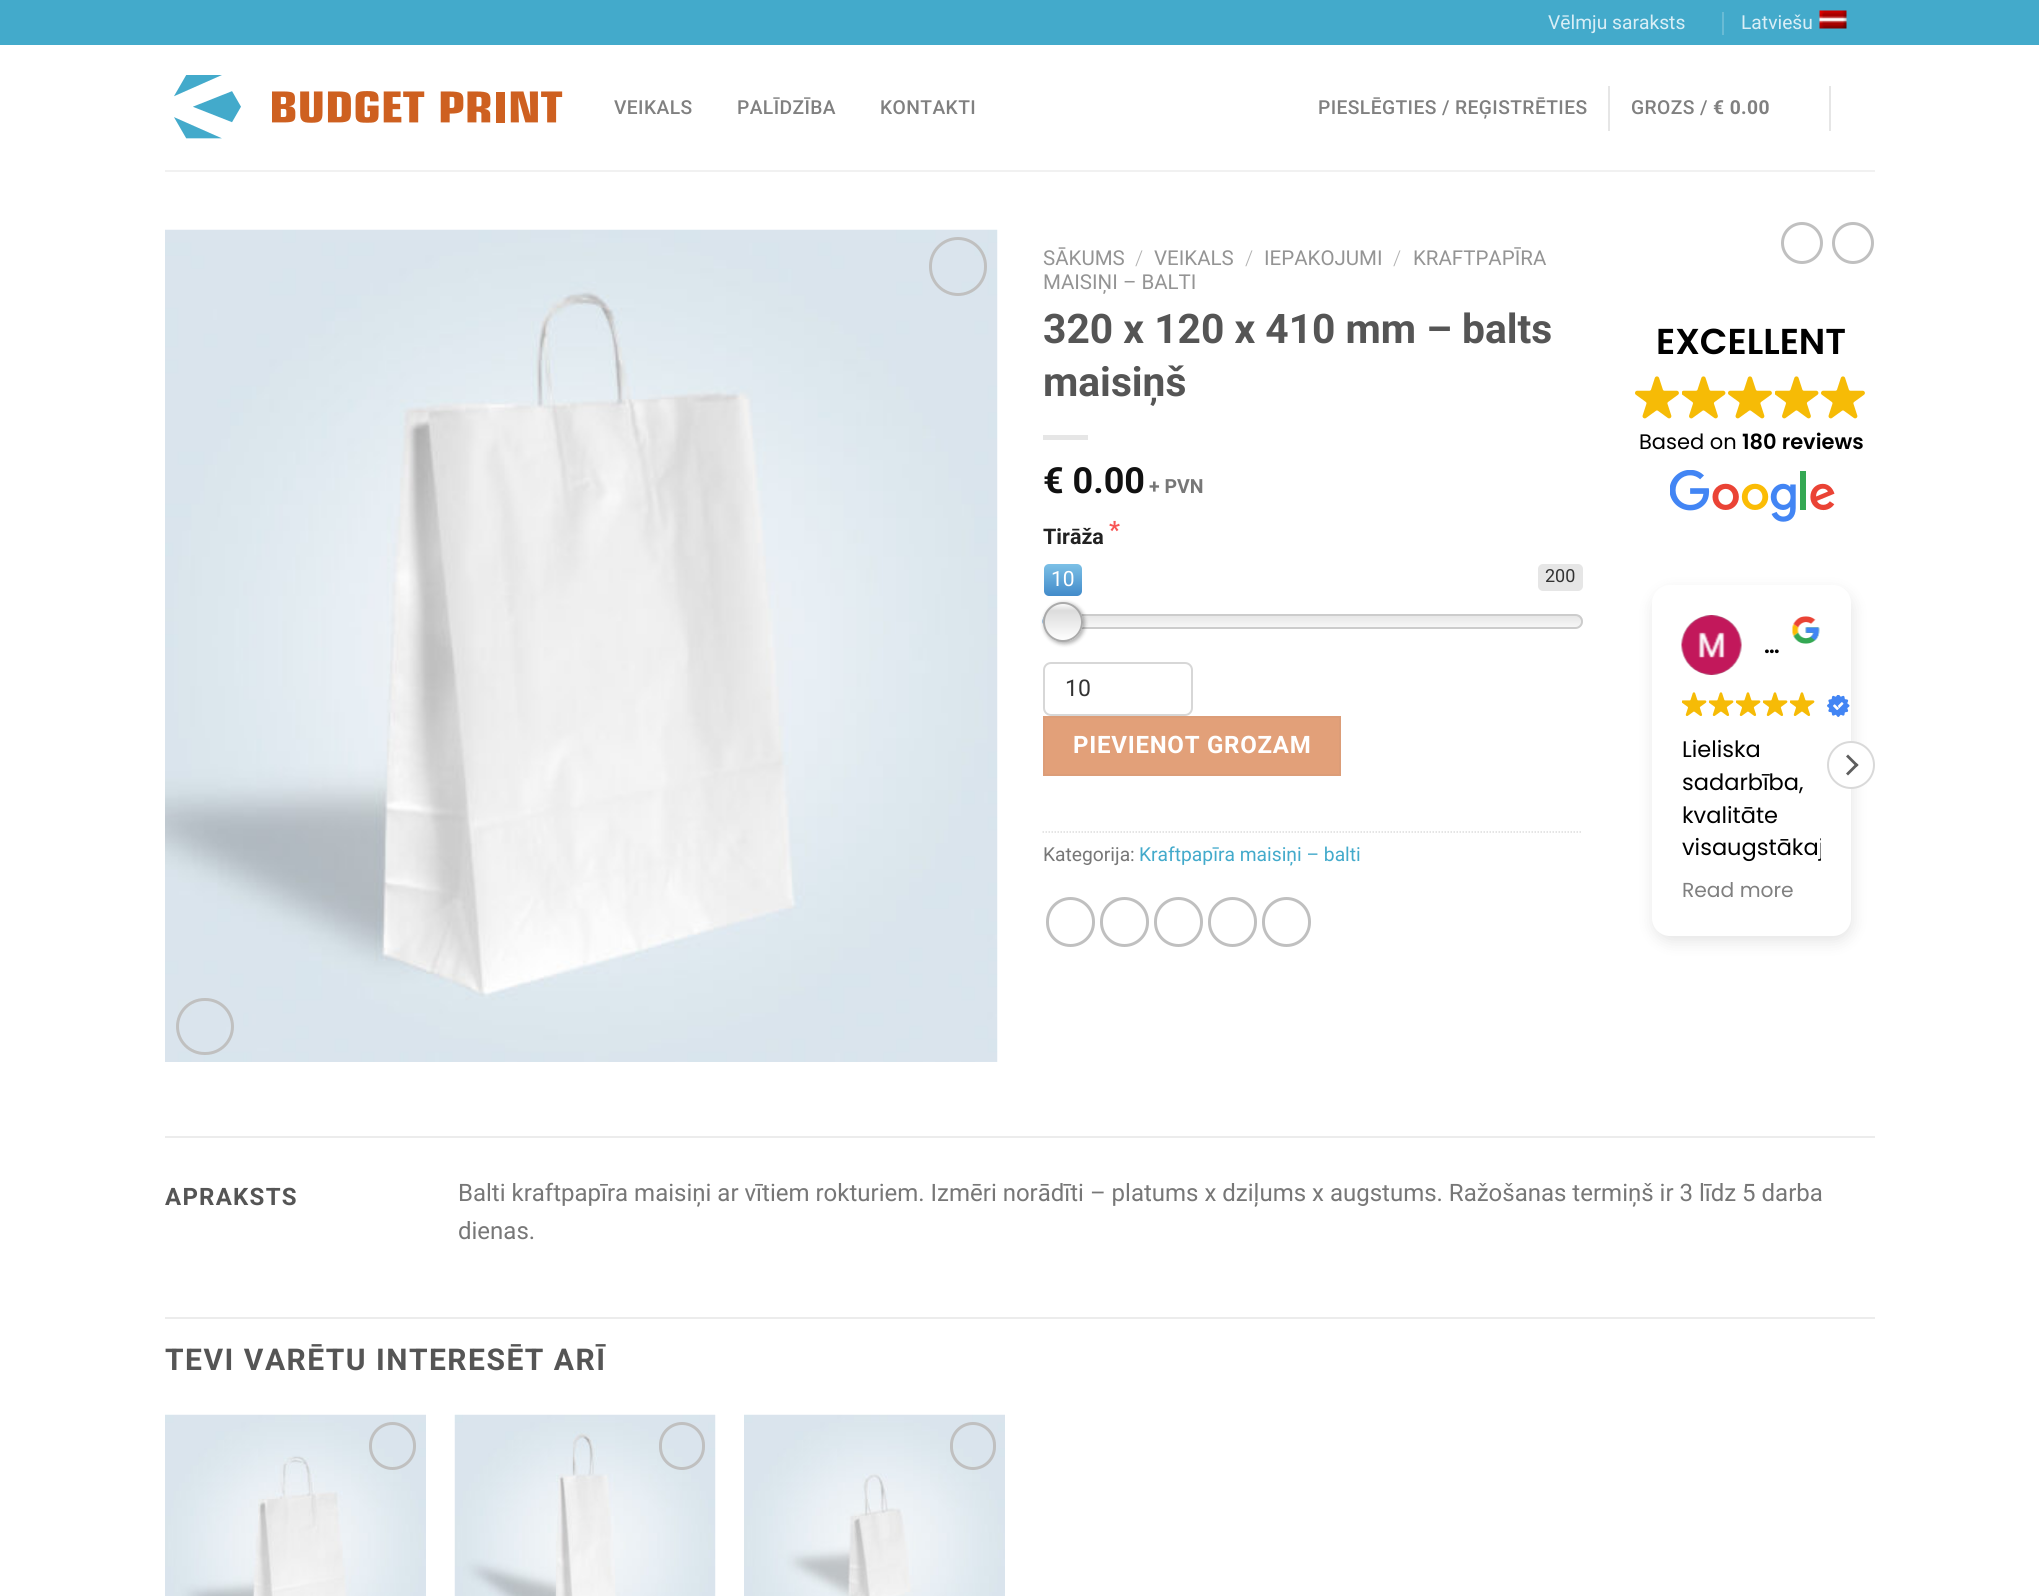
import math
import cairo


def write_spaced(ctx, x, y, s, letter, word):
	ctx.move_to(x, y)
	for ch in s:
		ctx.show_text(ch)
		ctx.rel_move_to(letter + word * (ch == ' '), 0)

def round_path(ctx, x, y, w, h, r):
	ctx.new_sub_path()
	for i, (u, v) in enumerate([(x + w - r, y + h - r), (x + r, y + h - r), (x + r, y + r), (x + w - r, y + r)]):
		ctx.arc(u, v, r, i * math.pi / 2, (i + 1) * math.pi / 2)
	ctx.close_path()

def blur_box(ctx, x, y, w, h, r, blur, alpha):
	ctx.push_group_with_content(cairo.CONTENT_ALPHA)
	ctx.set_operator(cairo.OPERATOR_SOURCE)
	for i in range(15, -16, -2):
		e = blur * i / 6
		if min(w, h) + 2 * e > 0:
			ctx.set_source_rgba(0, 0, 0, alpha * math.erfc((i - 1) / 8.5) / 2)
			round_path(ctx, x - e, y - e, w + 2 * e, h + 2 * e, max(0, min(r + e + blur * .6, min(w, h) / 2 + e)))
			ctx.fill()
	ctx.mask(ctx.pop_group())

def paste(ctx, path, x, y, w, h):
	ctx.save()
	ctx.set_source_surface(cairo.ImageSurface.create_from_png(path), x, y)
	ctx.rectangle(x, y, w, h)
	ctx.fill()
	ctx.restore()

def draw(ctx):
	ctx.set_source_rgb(1, 1, 1)
	ctx.paint()
	ctx.set_source_rgb(0.263, 0.667, 0.796)
	ctx.rectangle(0, 0, 2039, 45)
	ctx.fill()
	ctx.select_font_face('Roboto')
	ctx.set_font_size(19.25)
	ctx.set_source_rgb(0.851, 0.933, 0.961)
	ctx.move_to(1548, 29)
	ctx.show_text('Vēlmju saraksts')
	ctx.set_source_rgb(0.412, 0.733, 0.835)
	ctx.rectangle(1722, 12, 2, 23)
	ctx.fill()
	ctx.set_source_rgb(0.851, 0.933, 0.961)
	ctx.move_to(1741, 29)
	ctx.show_text('Latviešu')
	paste(ctx, 'media/1.png', 1819, 10, 28, 19)
	paste(ctx, 'media/2.png', 174, 75, 389, 64)
	ctx.select_font_face('Roboto Medium')
	ctx.set_source_rgb(0.502, 0.502, 0.502)
	for x, y, s in [
		(614, 114, 'VEIKALS'),
		(737, 114, 'PALĪDZĪBA'),
		(880, 114, 'KONTAKTI'),
		(1318, 114, 'PIESLĒGTIES / REĢISTRĒTIES'),
	]:
		write_spaced(ctx, x, y, s, 0.4, 0)
	ctx.set_source_rgb(0.902, 0.902, 0.902)
	ctx.rectangle(1608, 86, 2, 45)
	ctx.fill()
	ctx.set_source_rgb(0.502, 0.502, 0.502)
	write_spaced(ctx, 1631, 114, 'GROZS /', 0.4, 0)
	ctx.select_font_face('Roboto', cairo.FONT_SLANT_NORMAL, cairo.FONT_WEIGHT_BOLD)
	write_spaced(ctx, 1713, 114, '€ 0.00', 0.4, 0)
	ctx.set_source_rgb(0.902, 0.902, 0.902)
	ctx.rectangle(1829, 86, 2, 45)
	ctx.fill()
	ctx.set_source_rgb(0.945, 0.945, 0.945)
	ctx.rectangle(165, 170, 1710, 2)
	ctx.fill()
	paste(ctx, 'media/3.png', 165, 229, 833, 833)
	round_path(ctx, 930.5, 238.5, 55, 56, 27.5)
	ctx.set_source_rgb(0.753, 0.753, 0.753)
	ctx.set_line_width(3)
	ctx.stroke()
	round_path(ctx, 177.5, 999.5, 55, 54, 27)
	ctx.stroke()
	ctx.select_font_face('Roboto')
	ctx.set_font_size(20.5)
	ctx.set_source_rgb(0.58, 0.58, 0.58)
	ctx.move_to(1043, 265)
	ctx.show_text('SĀKUMS')
	ctx.select_font_face('Roboto Light')
	ctx.set_source_rgb(0.698, 0.698, 0.698)
	ctx.move_to(1135, 265)
	ctx.show_text('/')
	ctx.select_font_face('Roboto')
	ctx.set_source_rgb(0.58, 0.58, 0.58)
	ctx.move_to(1154, 265)
	ctx.show_text('VEIKALS')
	ctx.select_font_face('Roboto Light')
	ctx.set_source_rgb(0.698, 0.698, 0.698)
	ctx.move_to(1245, 265)
	ctx.show_text('/')
	ctx.select_font_face('Roboto')
	ctx.set_source_rgb(0.58, 0.58, 0.58)
	ctx.move_to(1264, 265)
	ctx.show_text('IEPAKOJUMI')
	ctx.select_font_face('Roboto Light')
	ctx.set_source_rgb(0.698, 0.698, 0.698)
	ctx.move_to(1393, 265)
	ctx.show_text('/')
	ctx.select_font_face('Roboto')
	ctx.set_source_rgb(0.58, 0.58, 0.58)
	ctx.move_to(1413, 265)
	ctx.show_text('KRAFTPAPĪRA')
	ctx.move_to(1043, 289)
	ctx.show_text('MAISIŅI – BALTI')
	ctx.select_font_face('Roboto', cairo.FONT_SLANT_NORMAL, cairo.FONT_WEIGHT_BOLD)
	ctx.set_font_size(40.75)
	ctx.set_source_rgb(0.333, 0.333, 0.333)
	ctx.move_to(1043, 343)
	ctx.show_text('320 x 120 x 410 mm – balts')
	ctx.move_to(1043, 396)
	ctx.show_text('maisiņš')
	ctx.set_source_rgb(0.902, 0.902, 0.902)
	ctx.rectangle(1043, 435, 45, 5)
	ctx.fill()
	ctx.set_font_size(36)
	ctx.set_source_rgb(0.067, 0.067, 0.067)
	ctx.move_to(1043, 493)
	ctx.show_text('€ 0.00')
	ctx.set_font_size(19.5)
	ctx.set_source_rgb(0.467, 0.467, 0.467)
	ctx.move_to(1149, 493)
	ctx.show_text('+ PVN')
	ctx.set_font_size(21.5)
	ctx.set_source_rgb(0.133, 0.133, 0.133)
	ctx.move_to(1043, 544)
	ctx.show_text('Tirāža')
	ctx.set_font_size(24)
	ctx.set_source_rgb(0.969, 0.333, 0.333)
	ctx.move_to(1109, 538)
	ctx.show_text('*')
	gradient = cairo.LinearGradient(1063, 564, 1063, 596)
	gradient.add_color_stop_rgba(0, 0.486, 0.753, 0.902, 1)
	gradient.add_color_stop_rgba(1, 0.259, 0.545, 0.792, 1)
	ctx.set_source(gradient)
	round_path(ctx, 1044, 564, 38, 32, 5)
	ctx.fill()
	ctx.select_font_face('Roboto')
	ctx.set_font_size(21)
	ctx.set_source_rgb(1, 1, 1)
	ctx.move_to(1051, 586)
	ctx.show_text('10')
	ctx.set_source_rgb(0.902, 0.902, 0.902)
	round_path(ctx, 1538, 564, 45, 27, 5)
	ctx.fill()
	ctx.set_font_size(18)
	ctx.set_source_rgb(0.2, 0.2, 0.2)
	ctx.move_to(1545, 582)
	ctx.show_text('200')
	ctx.save()
	round_path(ctx, 1043, 614, 540, 15, 7.5)
	ctx.clip()
	gradient = cairo.LinearGradient(1313, 609, 1313, 633)
	gradient.add_color_stop_rgba(0, 0.867, 0.867, 0.867, 1)
	gradient.add_color_stop_rgba(1, 1, 1, 1, 1)
	ctx.set_source(gradient)
	ctx.rectangle(1043, 615, 540, 12)
	ctx.fill()
	ctx.restore()
	round_path(ctx, 1044, 615, 538, 13, 6.5)
	ctx.set_source_rgb(0.8, 0.8, 0.8)
	ctx.set_line_width(2)
	ctx.stroke()
	ctx.set_source_rgb(0.259, 0.545, 0.792)
	ctx.set_fill_rule(cairo.FILL_RULE_EVEN_ODD)
	ctx.new_path()
	ctx.move_to(1050, 613.5)
	ctx.line_to(1063.5, 613.5)
	ctx.line_to(1063.5, 628.5)
	ctx.curve_to(1060, 628.5, 1050, 629, 1047, 628)
	ctx.curve_to(1039.5, 625, 1042, 613.5, 1050, 613.5)
	ctx.close_path()
	ctx.move_to(1050, 615)
	ctx.line_to(1063.5, 615)
	ctx.line_to(1063.5, 627)
	ctx.curve_to(1060, 627, 1050.5, 627.5, 1047.5, 626.5)
	ctx.curve_to(1042, 624, 1043.5, 615, 1050, 615)
	ctx.close_path()
	ctx.fill()
	ctx.set_source_rgb(0, 0, 0)
	blur_box(ctx, 1044, 603, 41, 41, 20.5, 2, 0.3)
	ctx.save()
	ctx.set_fill_rule(cairo.FILL_RULE_WINDING)
	round_path(ctx, 1043, 602, 40, 40, 20)
	ctx.clip()
	gradient = cairo.LinearGradient(1063, 603, 1063, 641)
	gradient.add_color_stop_rgba(0, 1, 1, 1, 1)
	gradient.add_color_stop_rgba(0.2, 0.863, 0.863, 0.863, 1)
	gradient.add_color_stop_rgba(1, 1, 1, 1, 1)
	ctx.set_source(gradient)
	ctx.rectangle(1043, 603, 40, 38)
	ctx.fill()
	ctx.restore()
	ctx.arc(1063, 622, 19, 0, 2 * math.pi)
	ctx.set_source_rgb(0.667, 0.667, 0.667)
	ctx.stroke()
	round_path(ctx, 1044, 663, 148, 52, 7)
	ctx.set_source_rgb(0.843, 0.843, 0.843)
	ctx.stroke()
	ctx.set_font_size(23)
	ctx.set_source_rgb(0.2, 0.2, 0.2)
	ctx.move_to(1065, 696)
	ctx.show_text('10')
	ctx.set_source_rgb(0.886, 0.627, 0.475)
	ctx.rectangle(1044, 717, 296, 58)
	ctx.fill_preserve()
	ctx.set_source_rgb(0.863, 0.616, 0.471)
	ctx.stroke()
	ctx.select_font_face('Roboto', cairo.FONT_SLANT_NORMAL, cairo.FONT_WEIGHT_BOLD)
	ctx.set_font_size(24)
	ctx.set_source_rgb(1, 1, 1)
	write_spaced(ctx, 1073, 753, 'PIEVIENOT GROZAM', 0.75, 0)
	ctx.new_path()
	ctx.move_to(1042.5, 832)
	ctx.line_to(1582.5, 832)
	ctx.set_source_rgb(0.867, 0.867, 0.867)
	ctx.set_line_width(1.5)
	ctx.set_dash([1.5, 1.5])
	ctx.stroke()
	ctx.select_font_face('Roboto')
	ctx.set_font_size(19.25)
	ctx.set_source_rgb(0.467, 0.467, 0.467)
	ctx.move_to(1043, 861)
	ctx.show_text('Kategorija:')
	ctx.set_source_rgb(0.263, 0.667, 0.796)
	ctx.move_to(1139, 861)
	ctx.show_text('Kraftpapīra maisiņi – balti')
	round_path(ctx, 1047.5, 898.5, 46, 47, 23)
	ctx.set_source_rgb(0.753, 0.753, 0.753)
	ctx.set_line_width(3)
	ctx.set_dash([])
	ctx.stroke()
	round_path(ctx, 1101.5, 898.5, 46, 47, 23)
	ctx.stroke()
	round_path(ctx, 1155.5, 898.5, 46, 47, 23)
	ctx.stroke()
	round_path(ctx, 1209.5, 898.5, 46, 47, 23)
	ctx.stroke()
	round_path(ctx, 1263.5, 898.5, 46, 47, 23)
	ctx.stroke()
	ctx.arc(1802, 243, 19.5, 0, 2 * math.pi)
	ctx.stroke()
	ctx.arc(1853, 243, 19.5, 0, 2 * math.pi)
	ctx.stroke()
	ctx.select_font_face('Poppins SemiBold')
	ctx.set_font_size(36)
	ctx.set_source_rgb(0, 0, 0)
	ctx.move_to(1656, 354)
	ctx.show_text('EXCELLENT')
	paste(ctx, 'media/4.png', 1635, 376, 44, 43)
	paste(ctx, 'media/5.png', 1682, 376, 44, 43)
	paste(ctx, 'media/4.png', 1728, 376, 44, 43)
	paste(ctx, 'media/5.png', 1775, 376, 44, 43)
	paste(ctx, 'media/4.png', 1821, 376, 44, 43)
	ctx.select_font_face('Poppins')
	ctx.set_font_size(21)
	ctx.move_to(1639, 449)
	ctx.show_text('Based on')
	ctx.select_font_face('Poppins SemiBold')
	ctx.move_to(1742, 449)
	ctx.show_text('180 reviews')
	paste(ctx, 'media/6.png', 1670, 470, 165, 52)
	ctx.set_source_rgb(0, 0, 0)
	blur_box(ctx, 1653, 591, 200, 351, 18, 7.5, 0.1)
	ctx.set_source_rgb(1, 1, 1)
	round_path(ctx, 1652, 585, 199, 351, 18)
	ctx.fill()
	paste(ctx, 'media/7.png', 1681, 615, 61, 60)
	paste(ctx, 'media/8.png', 1791, 616, 29, 28)
	ctx.set_font_size(22.5)
	ctx.set_source_rgb(0, 0, 0)
	ctx.move_to(1764, 653)
	ctx.show_text('…')
	paste(ctx, 'media/9.png', 1682, 692, 25, 24)
	paste(ctx, 'media/9.png', 1709, 692, 25, 24)
	paste(ctx, 'media/9.png', 1736, 692, 25, 24)
	paste(ctx, 'media/9.png', 1763, 692, 25, 24)
	paste(ctx, 'media/9.png', 1790, 692, 25, 24)
	paste(ctx, 'media/10.png', 1827, 695, 23, 22)
	ctx.select_font_face('Poppins')
	for x, y, s in [
		(1682, 757, 'Lieliska'),
		(1682, 790, 'sadarbība,'),
		(1682, 823, 'kvalitāte'),
	]:
		ctx.move_to(x, y)
		ctx.show_text(s)
	ctx.save()
	ctx.set_fill_rule(cairo.FILL_RULE_WINDING)
	ctx.rectangle(1682, 734, 139, 130)
	ctx.clip()
	ctx.move_to(1682, 855)
	ctx.show_text('visaugstākaj')
	ctx.restore()
	ctx.set_font_size(20.25)
	ctx.set_source_rgb(0.502, 0.502, 0.502)
	ctx.move_to(1682, 897)
	ctx.show_text('Read more')
	ctx.set_source_rgb(1, 1, 1)
	ctx.new_path()
	ctx.arc(1851, 765, 23, 0, 2 * math.pi)
	ctx.fill_preserve()
	ctx.set_source_rgb(0.851, 0.851, 0.851)
	ctx.set_line_width(2)
	ctx.stroke()
	ctx.set_source_rgb(0.369, 0.369, 0.369)
	ctx.set_fill_rule(cairo.FILL_RULE_WINDING)
	ctx.new_path()
	ctx.move_to(1856.5, 767)
	ctx.line_to(1846, 756.5)
	ctx.line_to(1848, 754.5)
	ctx.line_to(1858.5, 765)
	ctx.close_path()
	ctx.fill()
	ctx.new_path()
	ctx.move_to(1848, 775.5)
	ctx.line_to(1846, 773.5)
	ctx.line_to(1856.5, 763)
	ctx.line_to(1858.5, 765)
	ctx.close_path()
	ctx.fill()
	ctx.set_source_rgb(0.925, 0.925, 0.925)
	ctx.rectangle(165, 1136, 1710, 2)
	ctx.fill()
	ctx.select_font_face('Roboto', cairo.FONT_SLANT_NORMAL, cairo.FONT_WEIGHT_BOLD)
	ctx.set_font_size(24)
	ctx.set_source_rgb(0.333, 0.333, 0.333)
	write_spaced(ctx, 165, 1205, 'APRAKSTS', 1.25, 0)
	ctx.select_font_face('Roboto')
	ctx.set_source_rgb(0.467, 0.467, 0.467)
	ctx.move_to(458, 1201)
	ctx.show_text('Balti kraftpapīra maisiņi ar vītiem rokturiem. Izmēri norādīti – platums x dziļums x augstums. Ražošanas termiņš ir 3 līdz 5 darba')
	ctx.move_to(458, 1239)
	ctx.show_text('dienas.')
	ctx.set_source_rgb(0.925, 0.925, 0.925)
	ctx.rectangle(165, 1317, 1710, 2)
	ctx.fill()
	ctx.select_font_face('Roboto', cairo.FONT_SLANT_NORMAL, cairo.FONT_WEIGHT_BOLD)
	ctx.set_font_size(30)
	ctx.set_source_rgb(0.333, 0.333, 0.333)
	write_spaced(ctx, 165, 1370, 'TEVI VARĒTU INTERESĒT ARĪ', 1.5, 0)
	paste(ctx, 'media/11.png', 165, 1414, 261, 182)
	round_path(ctx, 370.5, 1423.5, 44, 45, 22)
	ctx.set_source_rgb(0.753, 0.753, 0.753)
	ctx.set_line_width(3)
	ctx.stroke()
	paste(ctx, 'media/12.png', 454, 1414, 262, 182)
	round_path(ctx, 660.5, 1423.5, 43, 45, 21.5)
	ctx.stroke()
	paste(ctx, 'media/13.png', 744, 1414, 261, 182)
	round_path(ctx, 951.5, 1423.5, 43, 45, 21.5)
	ctx.stroke()


surface = cairo.ImageSurface(cairo.FORMAT_RGB24, 2039, 1596)
ctx = cairo.Context(surface)
options = cairo.FontOptions()
options.set_hint_metrics(cairo.HINT_METRICS_OFF)
options.set_hint_style(cairo.HINT_STYLE_NONE)
ctx.set_font_options(options)
ctx.set_miter_limit(4)
draw(ctx)
surface.write_to_png('image.png')
